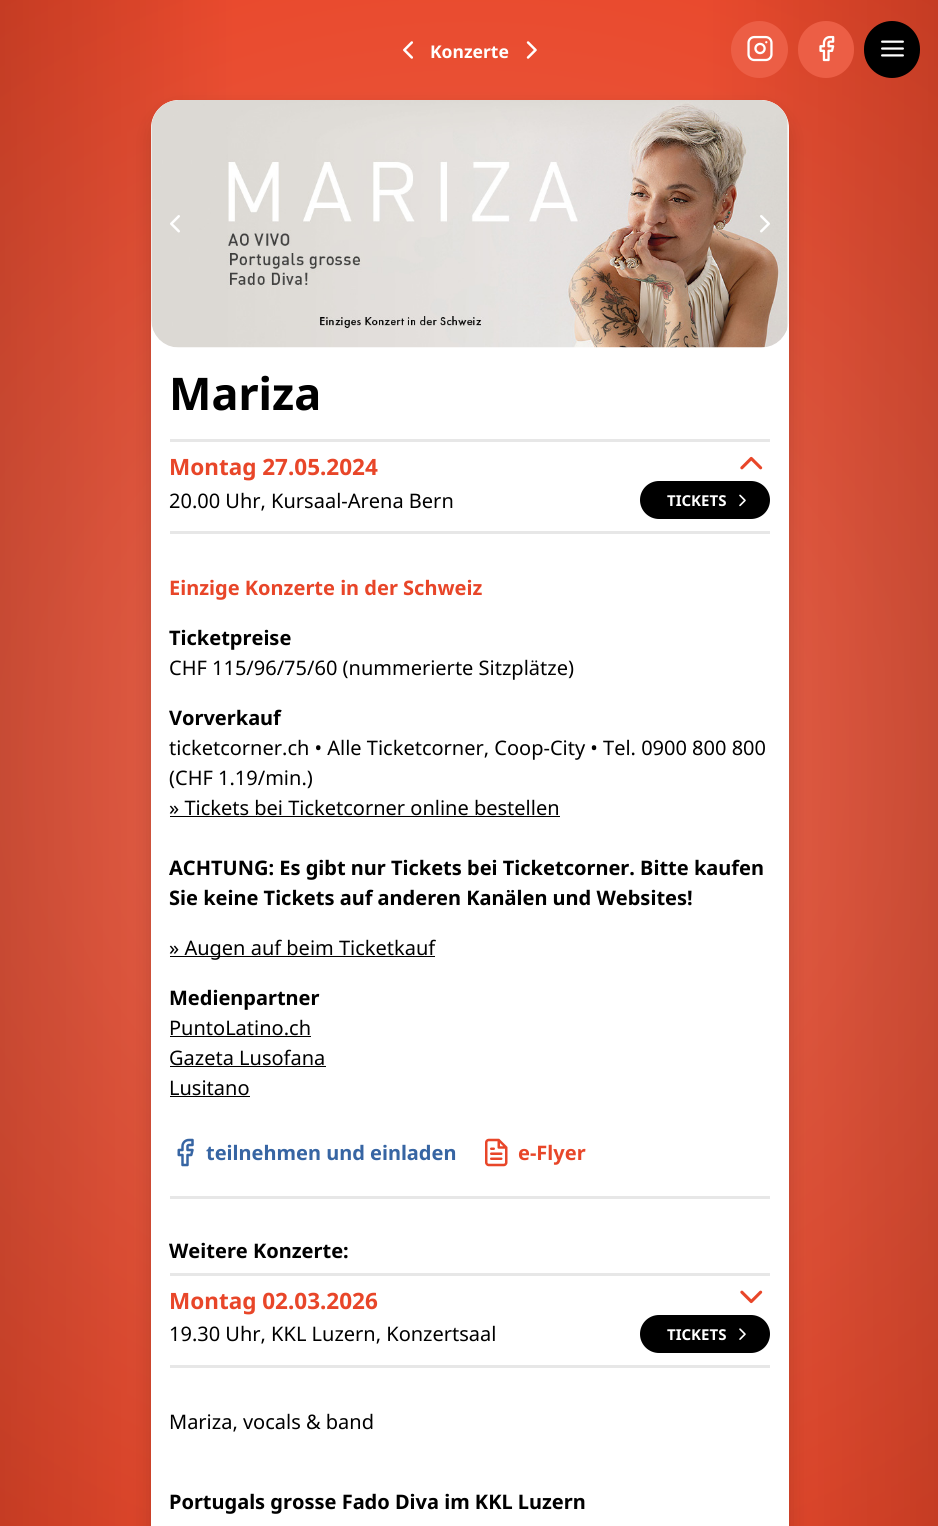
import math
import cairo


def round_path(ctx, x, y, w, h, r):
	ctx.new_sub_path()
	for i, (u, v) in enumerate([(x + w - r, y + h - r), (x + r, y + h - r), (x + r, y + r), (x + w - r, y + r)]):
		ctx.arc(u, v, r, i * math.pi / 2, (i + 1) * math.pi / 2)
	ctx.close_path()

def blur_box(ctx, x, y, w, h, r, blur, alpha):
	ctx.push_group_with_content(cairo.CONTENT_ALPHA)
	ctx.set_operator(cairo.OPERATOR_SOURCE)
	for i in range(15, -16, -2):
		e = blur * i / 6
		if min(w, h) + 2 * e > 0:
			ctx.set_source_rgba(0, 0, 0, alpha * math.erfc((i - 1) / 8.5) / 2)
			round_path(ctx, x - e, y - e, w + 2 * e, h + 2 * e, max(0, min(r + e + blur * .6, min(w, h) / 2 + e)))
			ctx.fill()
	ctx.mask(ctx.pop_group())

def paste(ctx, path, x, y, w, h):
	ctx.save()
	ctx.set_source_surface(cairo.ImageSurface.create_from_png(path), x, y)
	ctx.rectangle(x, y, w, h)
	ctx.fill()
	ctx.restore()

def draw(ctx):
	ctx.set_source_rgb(1, 1, 1)
	ctx.paint()
	gradient = cairo.RadialGradient(469, 763, 0, 469, 763, 896)
	gradient.add_color_stop_rgba(0, 0.929, 0.42, 0.329, 1)
	gradient.add_color_stop_rgba(1, 0.91, 0.275, 0.161, 1)
	ctx.set_source(gradient)
	ctx.rectangle(0, 0, 938, 1526)
	ctx.fill()
	gradient = cairo.LinearGradient(0, 763, 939, 763)
	gradient.add_color_stop_rgba(0, 0, 0, 0, 0.15)
	gradient.add_color_stop_rgba(0.25, 0, 0, 0, 0)
	gradient.add_color_stop_rgba(0.75, 0, 0, 0, 0)
	gradient.add_color_stop_rgba(1, 0, 0, 0, 0.15)
	ctx.set_source(gradient)
	ctx.rectangle(0, 0, 938, 1526)
	ctx.fill()
	paste(ctx, 'media/1.png', 403, 41, 10, 18)
	ctx.select_font_face('Noto Sans', cairo.FONT_SLANT_NORMAL, cairo.FONT_WEIGHT_BOLD)
	ctx.set_font_size(17.5)
	ctx.set_source_rgb(1, 1, 1)
	ctx.move_to(430, 58)
	ctx.show_text('Konzerte')
	paste(ctx, 'media/2.png', 526, 41, 11, 18)
	ctx.set_source_rgb(0.922, 0.369, 0.271)
	ctx.arc(759.5, 49.5, 28.5, 0, 2 * math.pi)
	ctx.fill()
	paste(ctx, 'media/3.png', 747, 35, 26, 27)
	round_path(ctx, 798, 21, 56, 57, 28)
	ctx.fill()
	paste(ctx, 'media/4.png', 819, 35, 16, 27)
	ctx.set_source_rgb(0, 0, 0)
	round_path(ctx, 864, 21, 56, 57, 28)
	ctx.fill()
	paste(ctx, 'media/5.png', 881, 40, 23, 17)
	ctx.set_source_rgb(0, 0, 0)
	blur_box(ctx, 151, 110, 638, 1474, 28, 10, 0.15)
	ctx.set_source_rgb(1, 1, 1)
	round_path(ctx, 151, 100, 638, 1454, 28)
	ctx.fill()
	paste(ctx, 'media/6.png', 151, 100, 637, 248)
	paste(ctx, 'media/7.png', 788, 127, 1, 197)
	paste(ctx, 'media/8.png', 170, 215, 10, 18)
	paste(ctx, 'media/9.png', 760, 215, 10, 18)
	ctx.set_font_size(45)
	ctx.set_source_rgb(0, 0, 0)
	ctx.move_to(169, 410)
	ctx.show_text('Mariza')
	ctx.set_source_rgb(0.906, 0.906, 0.906)
	ctx.rectangle(170, 1365, 600, 3)
	ctx.fill()
	ctx.rectangle(170, 439, 600, 3)
	ctx.fill()
	ctx.set_font_size(22.5)
	ctx.set_source_rgb(0.91, 0.275, 0.161)
	ctx.move_to(169, 475)
	ctx.show_text('Montag 27.05.2024')
	paste(ctx, 'media/10.png', 740, 456, 23, 14)
	ctx.select_font_face('Noto Sans')
	ctx.set_font_size(20)
	ctx.set_source_rgb(0, 0, 0)
	ctx.move_to(169, 508)
	ctx.show_text('20.00 Uhr, Kursaal-Arena Bern')
	round_path(ctx, 641.5, 482.5, 127, 35, 17.5)
	ctx.fill_preserve()
	ctx.set_line_width(3)
	ctx.stroke()
	ctx.select_font_face('Noto Sans', cairo.FONT_SLANT_NORMAL, cairo.FONT_WEIGHT_BOLD)
	ctx.set_font_size(15)
	ctx.set_source_rgb(1, 1, 1)
	ctx.move_to(667, 506)
	ctx.show_text('TICKETS')
	paste(ctx, 'media/11.png', 739, 494, 7, 13)
	ctx.set_source_rgb(0.906, 0.906, 0.906)
	ctx.rectangle(170, 531, 600, 3)
	ctx.fill()
	ctx.set_font_size(20)
	ctx.set_source_rgb(0.91, 0.275, 0.161)
	ctx.move_to(169, 595)
	ctx.show_text('Einzige Konzerte in der Schweiz')
	ctx.set_source_rgb(0, 0, 0)
	ctx.move_to(169, 645)
	ctx.show_text('Ticketpreise')
	ctx.select_font_face('Noto Sans')
	ctx.move_to(169, 675)
	ctx.show_text('CHF 115/96/75/60 (nummerierte Sitzplätze)')
	ctx.select_font_face('Noto Sans', cairo.FONT_SLANT_NORMAL, cairo.FONT_WEIGHT_BOLD)
	ctx.move_to(169, 725)
	ctx.show_text('Vorverkauf')
	ctx.select_font_face('Noto Sans')
	for x, y, s in [
		(169, 755, 'ticketcorner.ch • Alle Ticketcorner, Coop-City • Tel. 0900 800 800'),
		(169, 785, '(CHF 1.19/min.)'),
		(169, 815, '» Tickets bei Ticketcorner online bestellen'),
	]:
		ctx.move_to(x, y)
		ctx.show_text(s)
	ctx.rectangle(170, 816, 390, 1)
	ctx.fill()
	ctx.select_font_face('Noto Sans', cairo.FONT_SLANT_NORMAL, cairo.FONT_WEIGHT_BOLD)
	ctx.move_to(169, 875)
	ctx.show_text('ACHTUNG: Es gibt nur Tickets bei Ticketcorner. Bitte kaufen')
	ctx.move_to(169, 905)
	ctx.show_text('Sie keine Tickets auf anderen Kanälen und Websites!')
	ctx.rectangle(170, 956, 265, 1)
	ctx.fill()
	ctx.select_font_face('Noto Sans')
	ctx.move_to(169, 955)
	ctx.show_text('» Augen auf beim Ticketkauf')
	ctx.select_font_face('Noto Sans', cairo.FONT_SLANT_NORMAL, cairo.FONT_WEIGHT_BOLD)
	ctx.move_to(169, 1005)
	ctx.show_text('Medienpartner')
	ctx.select_font_face('Noto Sans')
	ctx.move_to(169, 1035)
	ctx.show_text('PuntoLatino.ch')
	ctx.rectangle(170, 1036, 141, 1)
	ctx.fill()
	ctx.move_to(169, 1065)
	ctx.show_text('Gazeta Lusofana')
	ctx.rectangle(170, 1066, 156, 1)
	ctx.fill()
	ctx.move_to(169, 1095)
	ctx.show_text('Lusitano')
	ctx.rectangle(170, 1096, 80, 1)
	ctx.fill()
	paste(ctx, 'media/12.png', 177, 1138, 17, 29)
	ctx.select_font_face('Noto Sans', cairo.FONT_SLANT_NORMAL, cairo.FONT_WEIGHT_BOLD)
	ctx.set_source_rgb(0.216, 0.396, 0.639)
	ctx.move_to(206, 1160)
	ctx.show_text('teilnehmen und einladen')
	paste(ctx, 'media/13.png', 485, 1138, 23, 29)
	ctx.set_source_rgb(0.91, 0.275, 0.161)
	ctx.move_to(518, 1160)
	ctx.show_text('e-Flyer')
	ctx.set_source_rgb(0.906, 0.906, 0.906)
	ctx.rectangle(170, 1196, 600, 3)
	ctx.fill()
	ctx.set_source_rgb(0, 0, 0)
	ctx.move_to(169, 1258)
	ctx.show_text('Weitere Konzerte:')
	ctx.set_source_rgb(0.906, 0.906, 0.906)
	ctx.rectangle(170, 1273, 600, 3)
	ctx.fill()
	ctx.set_font_size(22.5)
	ctx.set_source_rgb(0.91, 0.275, 0.161)
	ctx.move_to(169, 1309)
	ctx.show_text('Montag 02.03.2026')
	paste(ctx, 'media/14.png', 740, 1290, 23, 14)
	ctx.select_font_face('Noto Sans')
	ctx.set_font_size(20)
	ctx.set_source_rgb(0, 0, 0)
	ctx.move_to(169, 1341)
	ctx.show_text('19.30 Uhr, KKL Luzern, Konzertsaal')
	round_path(ctx, 641.5, 1316.5, 127, 35, 17.5)
	ctx.fill_preserve()
	ctx.stroke()
	ctx.select_font_face('Noto Sans', cairo.FONT_SLANT_NORMAL, cairo.FONT_WEIGHT_BOLD)
	ctx.set_font_size(15)
	ctx.set_source_rgb(1, 1, 1)
	ctx.move_to(667, 1340)
	ctx.show_text('TICKETS')
	paste(ctx, 'media/15.png', 739, 1328, 7, 12)
	ctx.select_font_face('Noto Sans')
	ctx.set_font_size(20)
	ctx.set_source_rgb(0, 0, 0)
	ctx.move_to(169, 1429)
	ctx.show_text('Mariza, vocals & band')
	ctx.select_font_face('Noto Sans', cairo.FONT_SLANT_NORMAL, cairo.FONT_WEIGHT_BOLD)
	ctx.move_to(169, 1509)
	ctx.show_text('Portugals grosse Fado Diva im KKL Luzern')


surface = cairo.ImageSurface(cairo.FORMAT_RGB24, 938, 1526)
ctx = cairo.Context(surface)
options = cairo.FontOptions()
options.set_hint_metrics(cairo.HINT_METRICS_OFF)
options.set_hint_style(cairo.HINT_STYLE_NONE)
ctx.set_font_options(options)
ctx.set_miter_limit(4)
draw(ctx)
surface.write_to_png('image.png')
